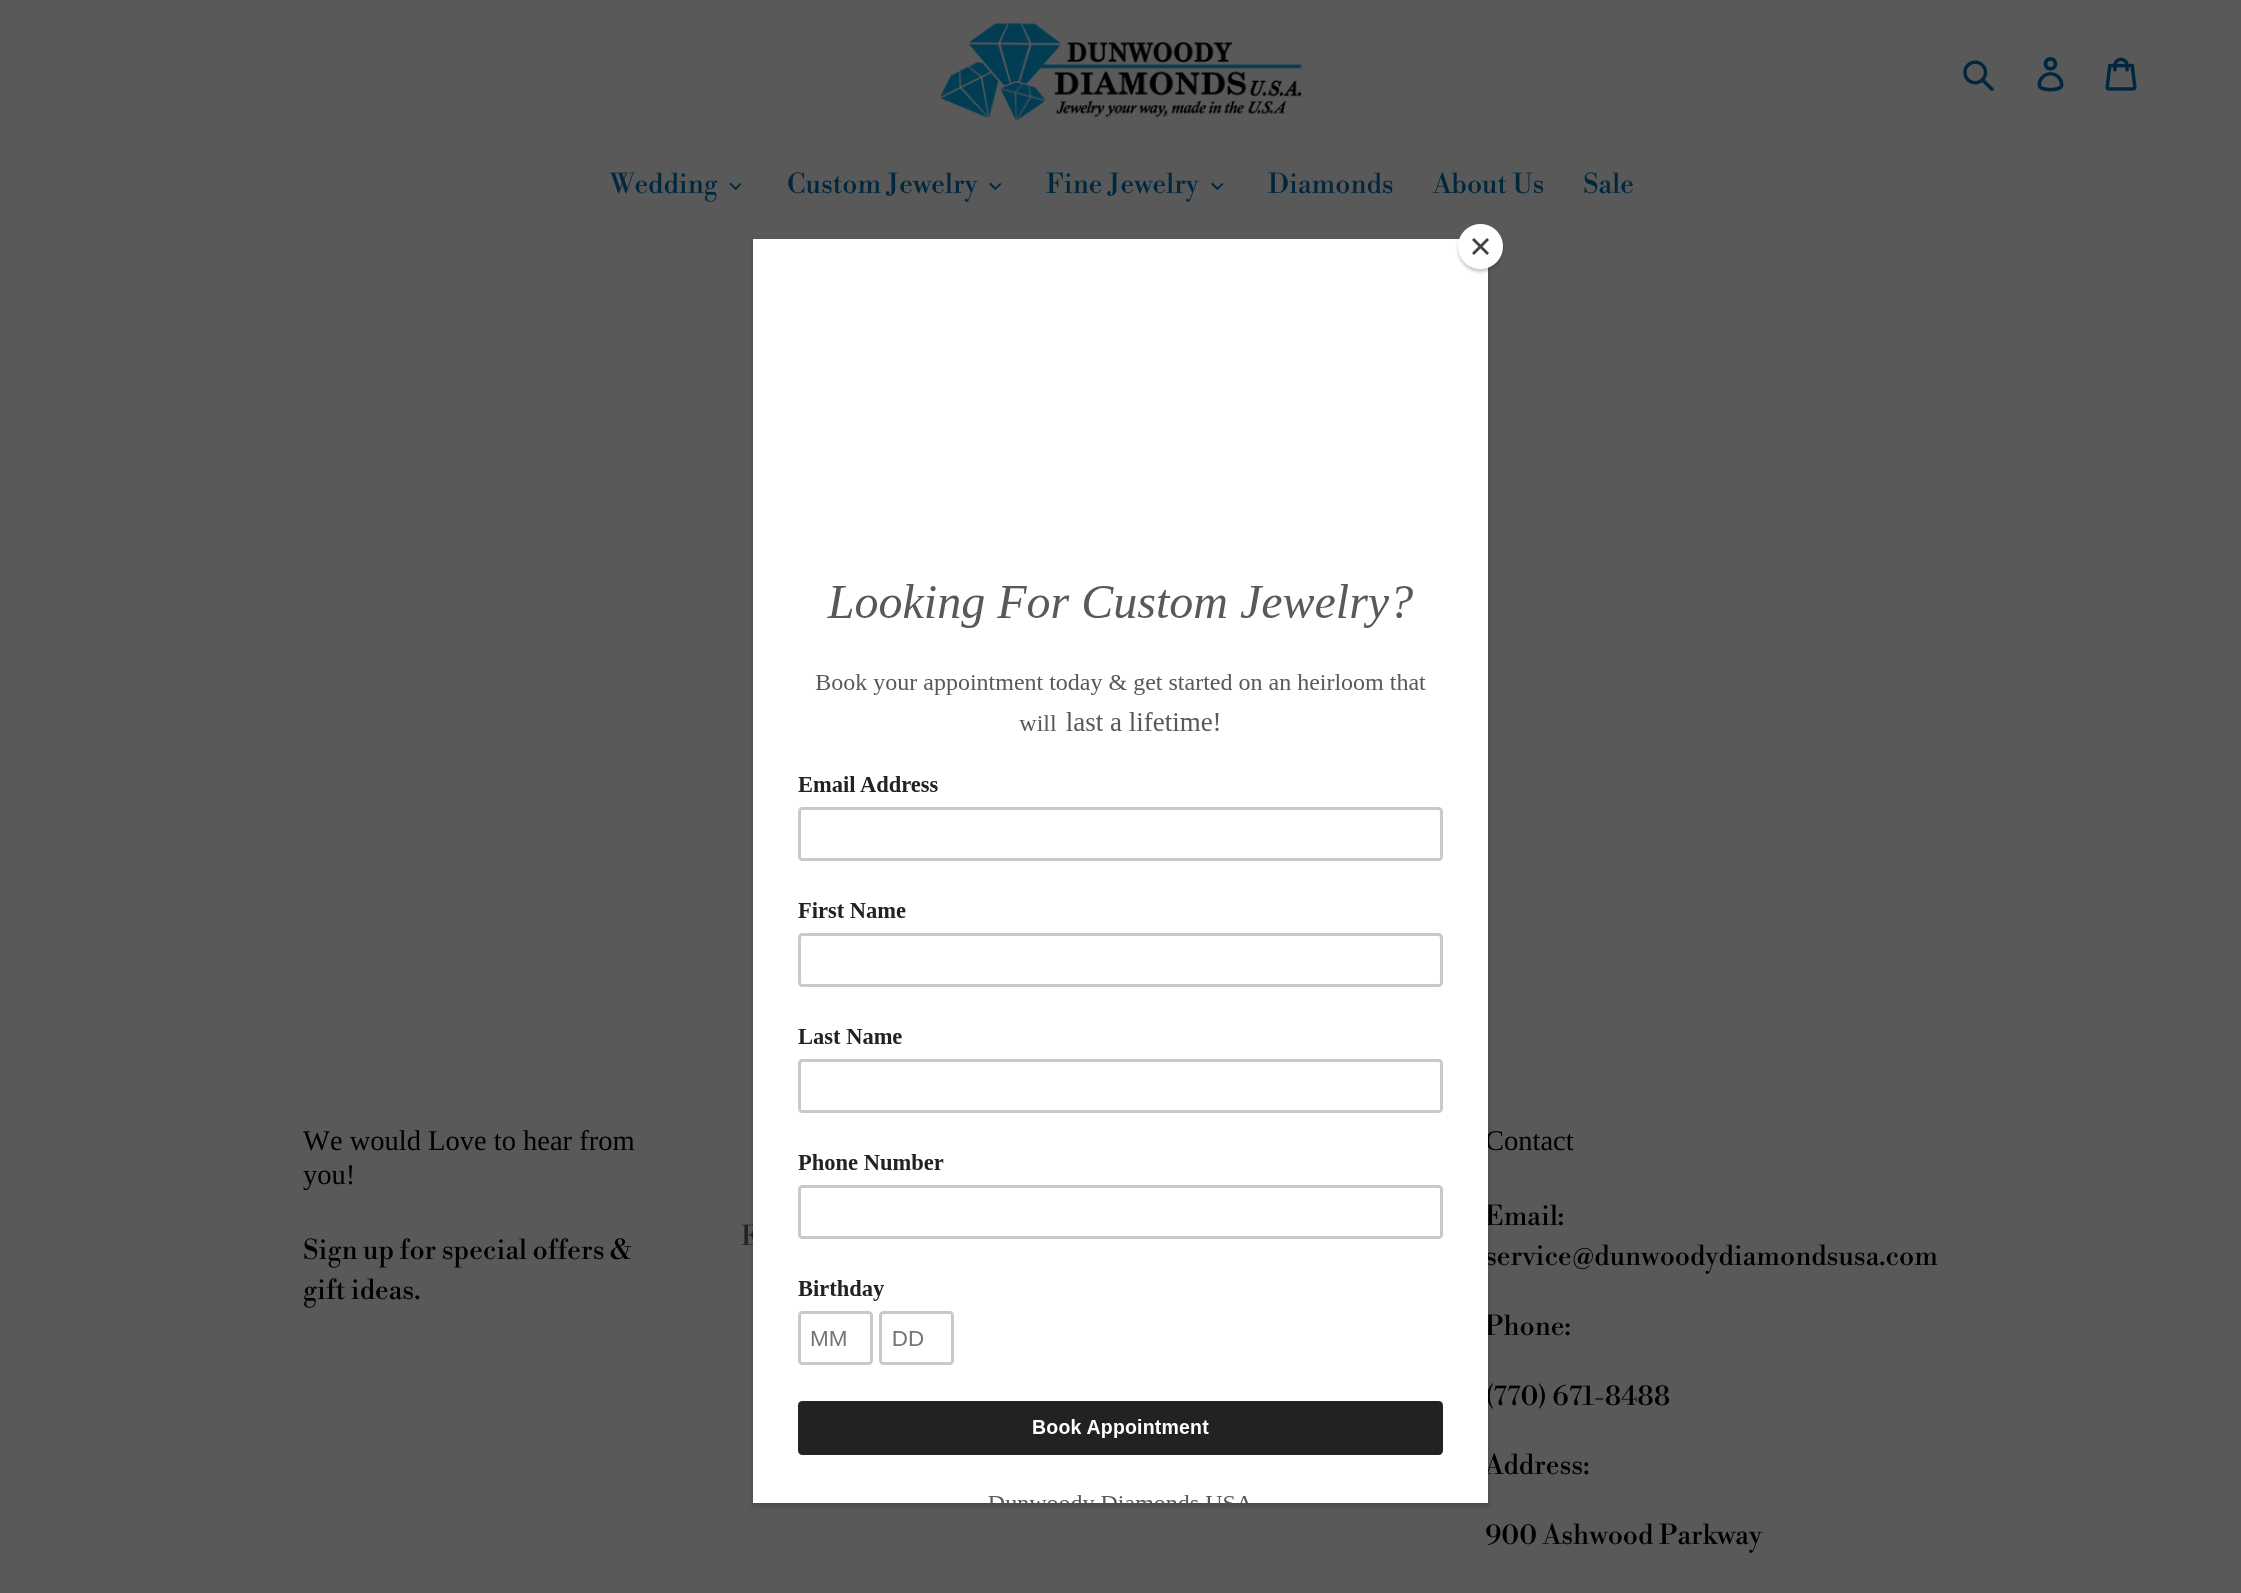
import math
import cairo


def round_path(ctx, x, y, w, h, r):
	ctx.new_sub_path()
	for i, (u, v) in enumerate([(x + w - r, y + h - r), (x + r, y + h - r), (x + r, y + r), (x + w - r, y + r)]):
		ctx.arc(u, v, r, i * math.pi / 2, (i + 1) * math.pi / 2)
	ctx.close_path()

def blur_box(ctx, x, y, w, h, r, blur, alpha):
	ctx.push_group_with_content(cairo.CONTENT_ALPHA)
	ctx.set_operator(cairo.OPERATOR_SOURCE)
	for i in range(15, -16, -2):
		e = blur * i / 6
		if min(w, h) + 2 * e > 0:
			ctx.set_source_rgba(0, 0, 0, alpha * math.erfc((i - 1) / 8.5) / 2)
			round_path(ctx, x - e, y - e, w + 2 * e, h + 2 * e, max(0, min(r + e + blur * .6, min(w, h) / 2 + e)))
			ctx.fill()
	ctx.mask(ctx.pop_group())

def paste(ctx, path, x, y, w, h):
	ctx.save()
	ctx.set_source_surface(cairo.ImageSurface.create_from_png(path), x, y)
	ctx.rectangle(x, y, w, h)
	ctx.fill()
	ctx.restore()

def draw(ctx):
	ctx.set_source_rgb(0.349, 0.349, 0.349)
	ctx.paint()
	paste(ctx, 'media/1.png', 939, 23, 363, 98)
	paste(ctx, 'media/2.png', 1963, 60, 31, 31)
	paste(ctx, 'media/3.png', 2037, 57, 27, 35)
	paste(ctx, 'media/4.png', 2105, 57, 32, 34)
	ctx.select_font_face('Libre Bodoni')
	ctx.set_font_size(27)
	ctx.set_source_rgb(0, 0.153, 0.239)
	ctx.move_to(610, 193)
	ctx.show_text('Wedding')
	ctx.new_path()
	ctx.move_to(740.5, 183)
	ctx.line_to(741.5, 184)
	ctx.line_to(736, 190)
	ctx.line_to(734.5, 188.5)
	ctx.close_path()
	ctx.fill()
	ctx.new_path()
	ctx.move_to(730.5, 182.5)
	ctx.line_to(736.5, 188.5)
	ctx.line_to(735.5, 190)
	ctx.line_to(729.5, 184)
	ctx.close_path()
	ctx.fill()
	ctx.move_to(787, 193)
	ctx.show_text('Custom Jewelry')
	ctx.new_path()
	ctx.move_to(1000, 183)
	ctx.line_to(1001.5, 184)
	ctx.line_to(995.5, 190)
	ctx.line_to(994.5, 188.5)
	ctx.close_path()
	ctx.fill()
	ctx.new_path()
	ctx.move_to(990.5, 182.5)
	ctx.line_to(996.5, 188.5)
	ctx.line_to(995, 190)
	ctx.line_to(989, 184)
	ctx.close_path()
	ctx.fill()
	ctx.move_to(1046, 193)
	ctx.show_text('Fine Jewelry')
	ctx.new_path()
	ctx.move_to(1222, 183)
	ctx.line_to(1223.5, 184)
	ctx.line_to(1217.5, 190)
	ctx.line_to(1216.5, 188.5)
	ctx.close_path()
	ctx.fill()
	ctx.new_path()
	ctx.move_to(1212.5, 182.5)
	ctx.line_to(1218.5, 188.5)
	ctx.line_to(1217, 190)
	ctx.line_to(1211, 184)
	ctx.close_path()
	ctx.fill()
	for x, y, s in [
		(1268, 193, 'Diamonds'),
		(1433, 193, 'About Us'),
		(1583, 193, 'Sale'),
	]:
		ctx.move_to(x, y)
		ctx.show_text(s)
	ctx.set_source_rgb(0, 0, 0)
	blur_box(ctx, 753, 242, 735, 1264, 0, 3, 0.2)
	ctx.save()
	ctx.rectangle(741, 1220, 465, 34)
	ctx.clip()
	ctx.set_source_rgb(0.137, 0.137, 0.137)
	ctx.move_to(741, 1245)
	ctx.show_text('E')
	ctx.restore()
	ctx.select_font_face('Liberation Serif')
	ctx.set_font_size(28.5)
	ctx.set_source_rgb(0, 0, 0)
	ctx.move_to(1485, 1150)
	ctx.show_text('Contact')
	ctx.select_font_face('Libre Bodoni')
	ctx.set_font_size(27)
	for x, y, s in [
		(1485, 1225, 'Email:'),
		(1485, 1265, 'service@dunwoodydiamondsusa.com'),
		(1485, 1335, 'Phone:'),
		(1485, 1405, '(770) 671-8488'),
		(1485, 1474, 'Address:'),
	]:
		ctx.move_to(x, y)
		ctx.show_text(s)
	paste(ctx, 'media/5.png', 753, 239, 735, 1264)
	ctx.set_source_rgb(0, 0, 0)
	blur_box(ctx, 1458, 227, 45, 45, 22.5, 1.5, 0.2)
	ctx.set_source_rgb(1, 1, 1)
	ctx.arc(1480.5, 246.5, 22.5, 0, 2 * math.pi)
	ctx.fill()
	ctx.set_source_rgb(0.255, 0.255, 0.255)
	ctx.new_path()
	ctx.move_to(1487, 238)
	ctx.line_to(1489, 240)
	ctx.line_to(1474, 255)
	ctx.line_to(1472, 253)
	ctx.close_path()
	ctx.fill()
	ctx.new_path()
	ctx.move_to(1472, 240)
	ctx.line_to(1474, 238)
	ctx.line_to(1489, 253)
	ctx.line_to(1487, 255)
	ctx.close_path()
	ctx.fill()
	ctx.select_font_face('Liberation Serif')
	ctx.set_font_size(28.5)
	ctx.set_source_rgb(0, 0, 0)
	ctx.move_to(303, 1150)
	ctx.show_text('We would Love to hear from')
	ctx.move_to(303, 1184)
	ctx.show_text('you!')
	ctx.select_font_face('Libre Bodoni')
	ctx.set_font_size(27)
	for x, y, s in [
		(303, 1259, 'Sign up for special offers &'),
		(303, 1299, 'gift ideas.'),
		(1485, 1544, '900 Ashwood Parkway'),
	]:
		ctx.move_to(x, y)
		ctx.show_text(s)


surface = cairo.ImageSurface(cairo.FORMAT_RGB24, 2241, 1593)
ctx = cairo.Context(surface)
options = cairo.FontOptions()
options.set_hint_metrics(cairo.HINT_METRICS_OFF)
options.set_hint_style(cairo.HINT_STYLE_NONE)
ctx.set_font_options(options)
ctx.set_miter_limit(4)
draw(ctx)
surface.write_to_png('image.png')
